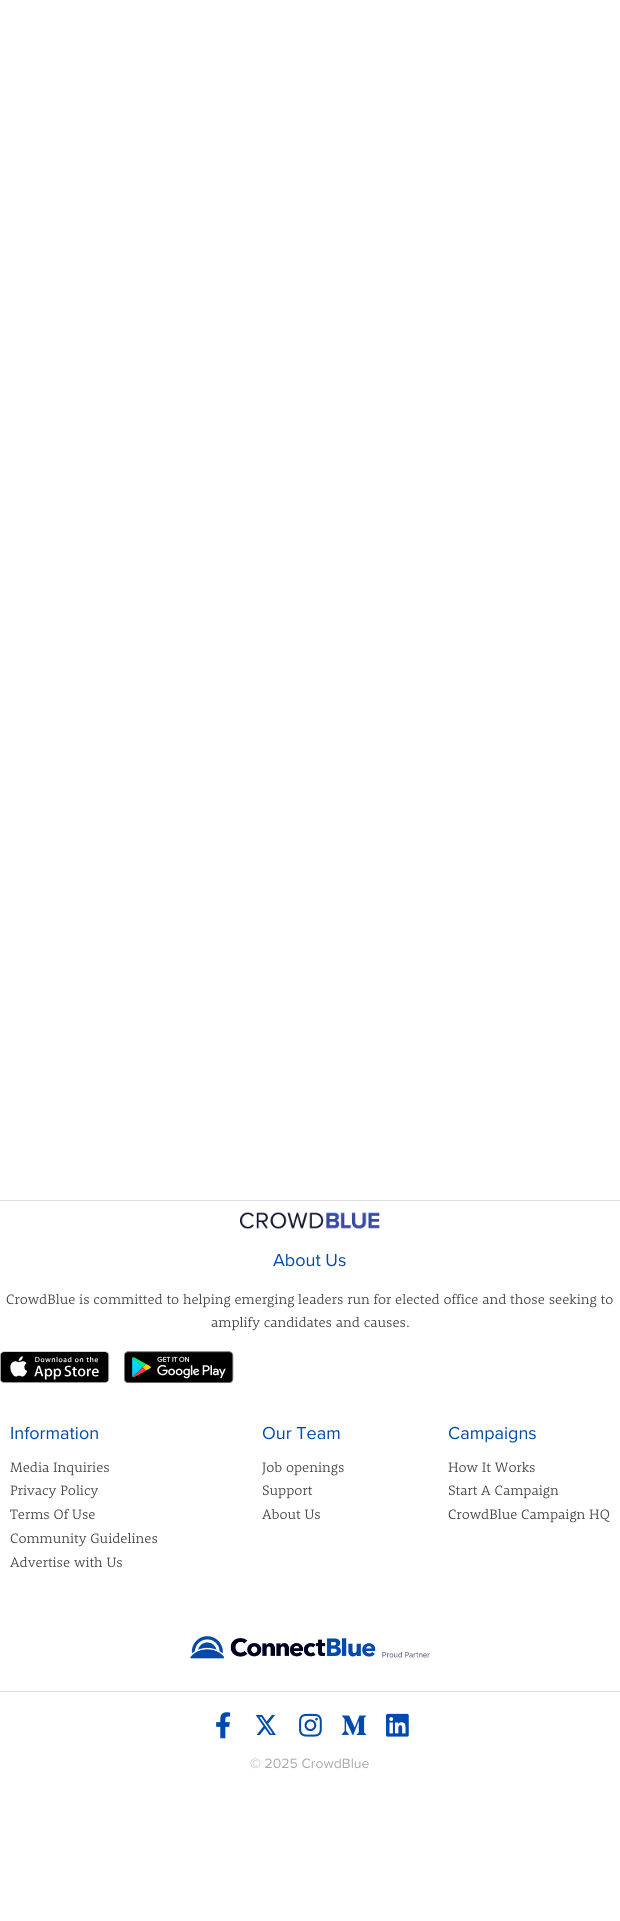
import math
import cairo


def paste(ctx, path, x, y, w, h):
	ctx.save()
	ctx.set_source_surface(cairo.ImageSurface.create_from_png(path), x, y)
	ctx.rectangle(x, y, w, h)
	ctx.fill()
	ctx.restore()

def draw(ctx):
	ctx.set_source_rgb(1, 1, 1)
	ctx.paint()
	ctx.set_source_rgb(0.867, 0.867, 0.867)
	ctx.rectangle(0, 1200, 620, 1)
	ctx.fill()
	paste(ctx, 'media/1.png', 240, 1212, 140, 17)
	ctx.select_font_face('Proxima Nova')
	ctx.set_font_size(18)
	ctx.set_source_rgb(0, 0.29, 0.678)
	ctx.move_to(273, 1266)
	ctx.show_text('About Us')
	ctx.select_font_face('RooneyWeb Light')
	ctx.set_font_size(14)
	ctx.set_source_rgb(0.267, 0.267, 0.267)
	ctx.move_to(6, 1304)
	ctx.show_text('CrowdBlue is committed to helping emerging leaders run for elected office and those seeking to')
	ctx.move_to(211, 1327)
	ctx.show_text('amplify candidates and causes.')
	paste(ctx, 'media/2.png', 0, 1351, 110, 32)
	paste(ctx, 'media/3.png', 124, 1351, 110, 32)
	ctx.select_font_face('Proxima Nova')
	ctx.set_font_size(18)
	ctx.set_source_rgb(0, 0.29, 0.678)
	ctx.move_to(10, 1439)
	ctx.show_text('Information')
	ctx.select_font_face('RooneyWeb Light')
	ctx.set_font_size(14)
	ctx.set_source_rgb(0.267, 0.267, 0.267)
	for x, y, s in [
		(10, 1472, 'Media Inquiries'),
		(10, 1495, 'Privacy Policy'),
		(10, 1519, 'Terms Of Use'),
		(10, 1543, 'Community Guidelines'),
		(10, 1567, 'Advertise with Us'),
	]:
		ctx.move_to(x, y)
		ctx.show_text(s)
	ctx.select_font_face('Proxima Nova')
	ctx.set_font_size(18)
	ctx.set_source_rgb(0, 0.29, 0.678)
	ctx.move_to(262, 1439)
	ctx.show_text('Our Team')
	ctx.select_font_face('RooneyWeb Light')
	ctx.set_font_size(14)
	ctx.set_source_rgb(0.267, 0.267, 0.267)
	for x, y, s in [
		(262, 1472, 'Job openings'),
		(262, 1495, 'Support'),
		(262, 1519, 'About Us'),
	]:
		ctx.move_to(x, y)
		ctx.show_text(s)
	ctx.select_font_face('Proxima Nova')
	ctx.set_font_size(18)
	ctx.set_source_rgb(0, 0.29, 0.678)
	ctx.move_to(448, 1439)
	ctx.show_text('Campaigns')
	ctx.select_font_face('RooneyWeb Light')
	ctx.set_font_size(14)
	ctx.set_source_rgb(0.267, 0.267, 0.267)
	for x, y, s in [
		(448, 1472, 'How It Works'),
		(448, 1495, 'Start A Campaign'),
		(448, 1519, 'CrowdBlue Campaign HQ'),
	]:
		ctx.move_to(x, y)
		ctx.show_text(s)
	paste(ctx, 'media/4.png', 190, 1636, 240, 23)
	ctx.set_source_rgb(0.859, 0.859, 0.859)
	ctx.rectangle(0, 1691, 620, 1)
	ctx.fill()
	paste(ctx, 'media/5.png', 216, 1712, 15, 27)
	paste(ctx, 'media/6.png', 255, 1714, 21, 21)
	paste(ctx, 'media/7.png', 299, 1713, 23, 24)
	paste(ctx, 'media/8.png', 341, 1715, 26, 20)
	paste(ctx, 'media/9.png', 386, 1713, 23, 24)
	ctx.select_font_face('Proxima Nova')
	ctx.set_source_rgb(0.667, 0.667, 0.667)
	ctx.move_to(250, 1768)
	ctx.show_text('© 2025 CrowdBlue')


surface = cairo.ImageSurface(cairo.FORMAT_RGB24, 620, 1921)
ctx = cairo.Context(surface)
options = cairo.FontOptions()
options.set_hint_metrics(cairo.HINT_METRICS_OFF)
options.set_hint_style(cairo.HINT_STYLE_NONE)
ctx.set_font_options(options)
ctx.set_miter_limit(4)
draw(ctx)
surface.write_to_png('image.png')
